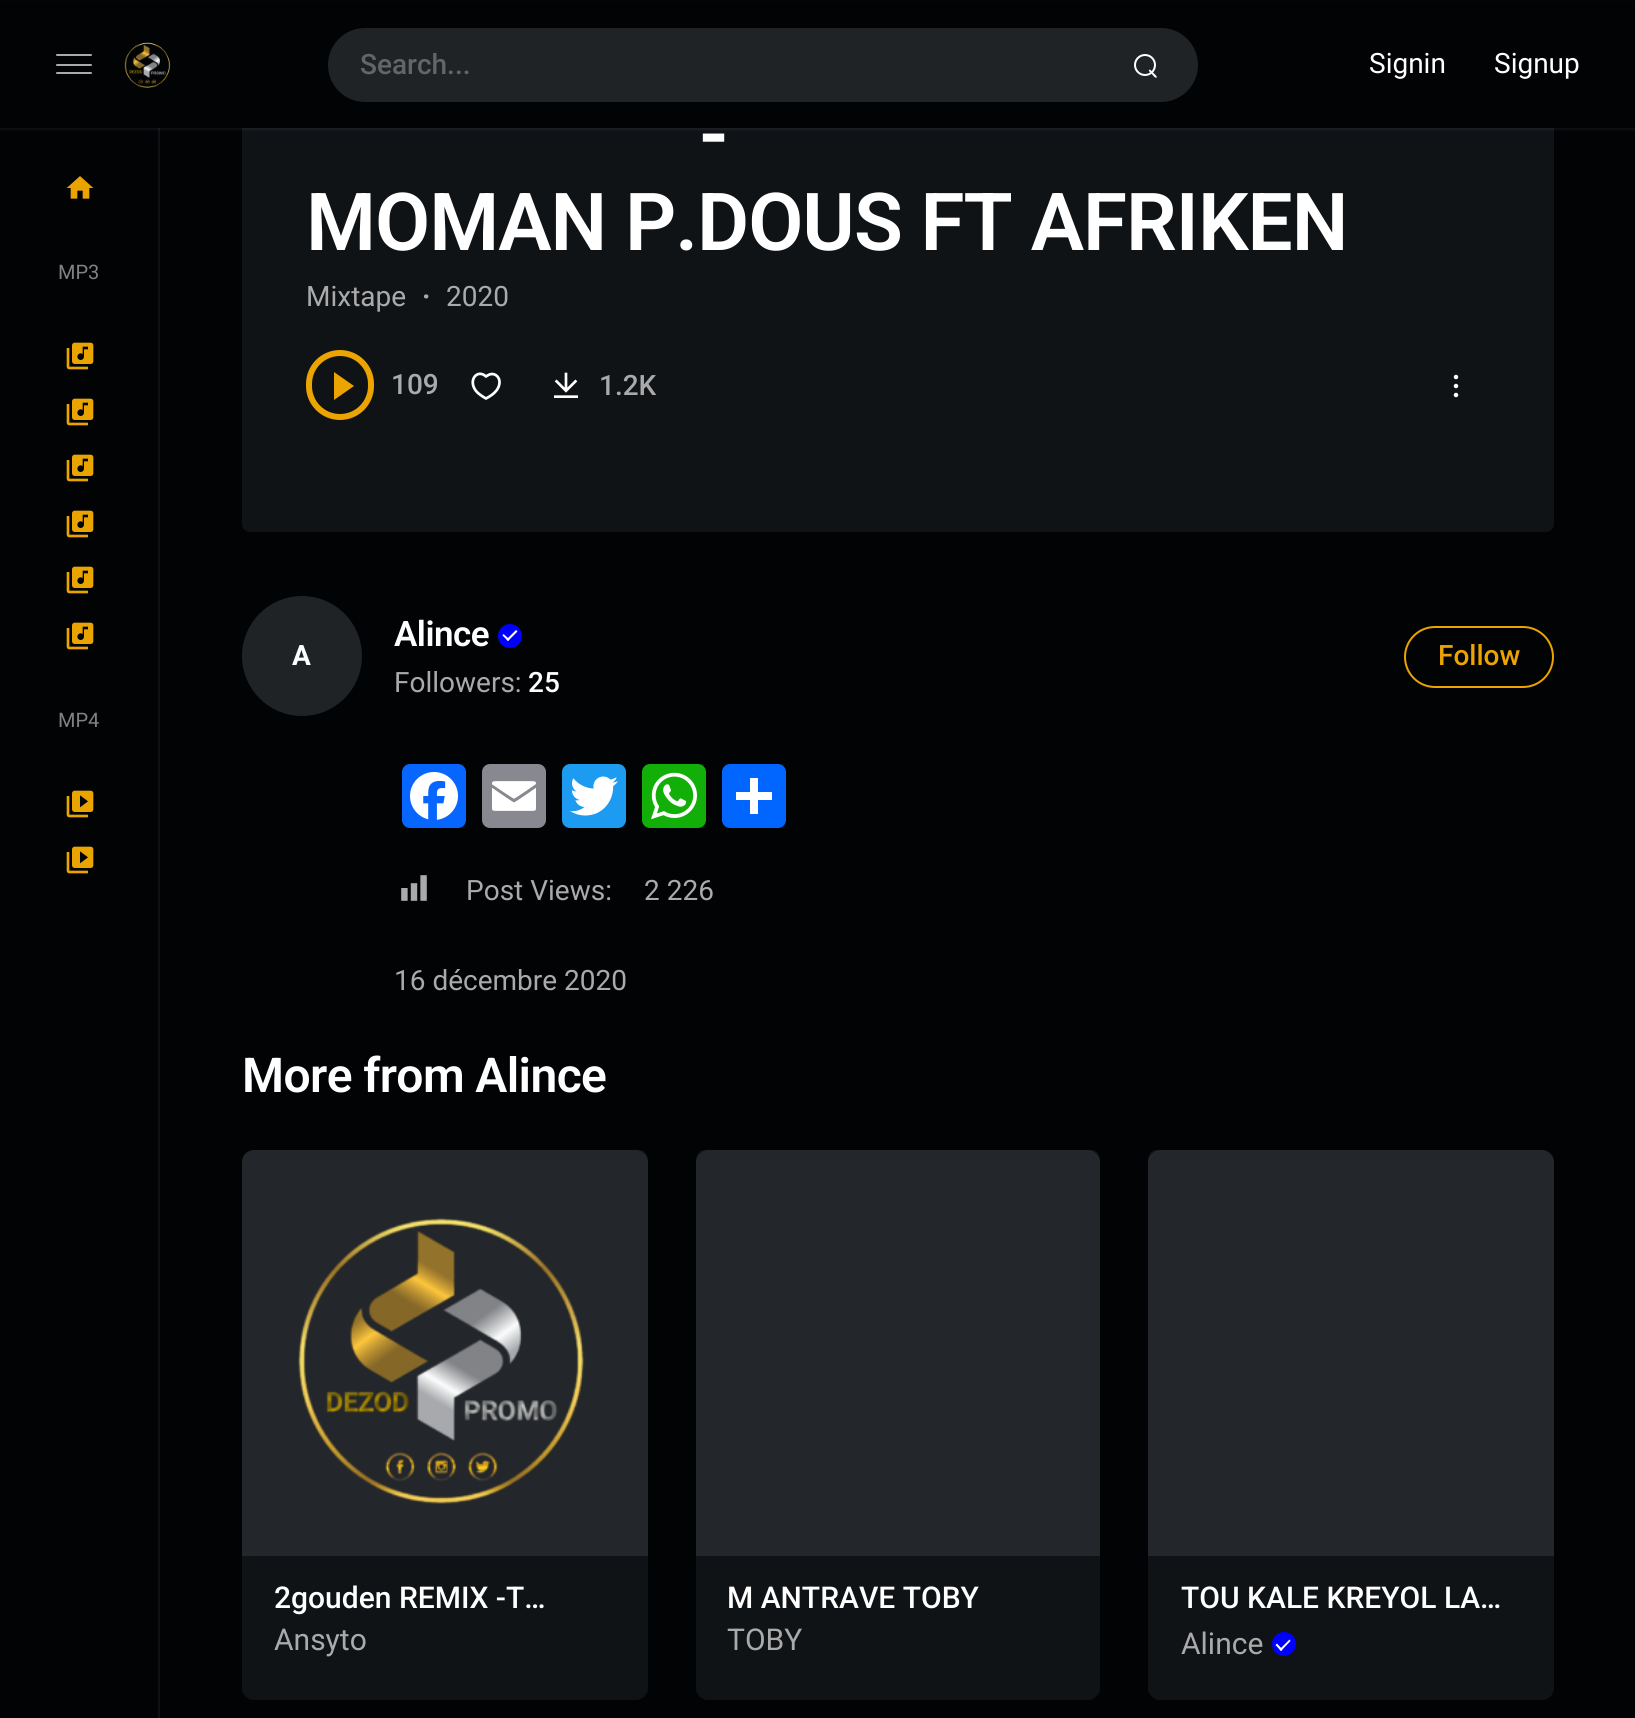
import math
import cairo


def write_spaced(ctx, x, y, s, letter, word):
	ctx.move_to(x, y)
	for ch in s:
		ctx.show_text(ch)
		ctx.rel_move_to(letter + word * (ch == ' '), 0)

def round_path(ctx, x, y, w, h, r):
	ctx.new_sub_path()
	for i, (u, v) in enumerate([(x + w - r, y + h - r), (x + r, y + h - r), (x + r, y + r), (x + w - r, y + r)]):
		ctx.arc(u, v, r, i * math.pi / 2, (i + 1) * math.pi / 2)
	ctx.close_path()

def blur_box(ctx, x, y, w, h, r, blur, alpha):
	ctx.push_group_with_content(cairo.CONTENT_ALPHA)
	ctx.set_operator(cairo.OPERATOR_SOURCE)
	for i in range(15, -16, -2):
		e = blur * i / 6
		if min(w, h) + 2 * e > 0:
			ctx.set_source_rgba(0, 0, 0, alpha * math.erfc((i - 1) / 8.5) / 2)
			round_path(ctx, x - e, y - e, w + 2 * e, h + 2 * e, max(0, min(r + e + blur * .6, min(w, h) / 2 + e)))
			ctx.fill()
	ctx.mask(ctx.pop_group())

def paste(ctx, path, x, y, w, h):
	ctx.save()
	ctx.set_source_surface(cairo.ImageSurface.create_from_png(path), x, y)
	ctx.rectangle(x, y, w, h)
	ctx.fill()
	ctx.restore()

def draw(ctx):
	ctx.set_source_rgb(0.004, 0.012, 0.02)
	ctx.paint()
	ctx.set_source_rgb(0.055, 0.067, 0.078)
	ctx.rectangle(158, 128, 2, 1590)
	ctx.fill()
	ctx.set_source_rgb(0.063, 0.075, 0.086)
	round_path(ctx, 242, 2, 1312, 530, 8)
	ctx.fill()
	ctx.set_source_rgb(0.51, 0.549, 0.588)
	blur_box(ctx, 0, 2, 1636, 128, 0, 1, 0.1)
	ctx.set_source_rgb(0.004, 0.012, 0.02)
	ctx.rectangle(0, 1, 1635, 127)
	ctx.fill()
	ctx.set_source_rgb(0.667, 0.667, 0.667)
	round_path(ctx, 56, 64, 36, 2, 1)
	ctx.fill()
	round_path(ctx, 56, 54, 36, 2, 1)
	ctx.fill()
	round_path(ctx, 56, 72, 36, 2, 1)
	ctx.fill()
	paste(ctx, 'media/1.png', 124, 42, 47, 46)
	ctx.set_source_rgb(0.125, 0.137, 0.149)
	round_path(ctx, 328, 28, 870, 74, 37)
	ctx.fill()
	ctx.select_font_face('Roboto Medium')
	ctx.set_font_size(28)
	ctx.set_source_rgb(0.388, 0.396, 0.404)
	ctx.move_to(360, 74)
	ctx.show_text('Search...')
	ctx.new_path()
	ctx.arc(1145, 65, 10, 0, 2 * math.pi)
	ctx.set_source_rgb(1, 1, 1)
	ctx.stroke()
	ctx.new_path()
	ctx.move_to(1150.5, 70)
	ctx.line_to(1155.5, 75)
	ctx.curve_to(1158, 77.5, 1156.5, 79, 1154, 76.5)
	ctx.line_to(1149, 71)
	ctx.curve_to(1148.5, 70, 1149.5, 69, 1150.5, 70)
	ctx.close_path()
	ctx.fill()
	ctx.select_font_face('Roboto')
	ctx.move_to(1369, 73)
	ctx.show_text('Signin')
	ctx.move_to(1494, 73)
	ctx.show_text('Signup')
	paste(ctx, 'media/2.png', 66, 176, 28, 23)
	ctx.set_font_size(20)
	ctx.set_source_rgb(0.502, 0.506, 0.51)
	ctx.move_to(58, 279)
	ctx.show_text('MP3')
	paste(ctx, 'media/3.png', 66, 342, 28, 28)
	paste(ctx, 'media/3.png', 66, 398, 28, 28)
	paste(ctx, 'media/3.png', 66, 454, 28, 28)
	paste(ctx, 'media/3.png', 66, 510, 28, 28)
	paste(ctx, 'media/3.png', 66, 566, 28, 28)
	paste(ctx, 'media/3.png', 66, 622, 28, 28)
	ctx.move_to(58, 727)
	ctx.show_text('MP4')
	paste(ctx, 'media/4.png', 66, 790, 28, 28)
	paste(ctx, 'media/4.png', 66, 846, 28, 28)
	ctx.select_font_face('Roboto SemiBold')
	ctx.set_font_size(80)
	ctx.set_source_rgb(1, 1, 1)
	write_spaced(ctx, 699, 162, '-', -1, 0)
	write_spaced(ctx, 306, 250, 'MOMAN P.DOUS FT AFRIKEN', -1, 0)
	ctx.select_font_face('Roboto')
	ctx.set_font_size(28)
	ctx.set_source_rgb(0.667, 0.667, 0.667)
	ctx.move_to(306, 306)
	ctx.show_text('Mixtape')
	ctx.select_font_face('Roboto', cairo.FONT_SLANT_NORMAL, cairo.FONT_WEIGHT_BOLD)
	ctx.move_to(422, 306)
	ctx.show_text('·')
	ctx.select_font_face('Roboto')
	ctx.move_to(446, 306)
	ctx.show_text('2020')
	ctx.set_source_rgb(0.918, 0.643, 0)
	ctx.new_path()
	ctx.move_to(334, 400)
	ctx.line_to(334, 372)
	ctx.line_to(354, 386)
	ctx.close_path()
	ctx.fill()
	round_path(ctx, 309, 353, 62, 64, 31)
	ctx.set_line_width(6)
	ctx.stroke()
	ctx.select_font_face('Roboto Medium')
	ctx.set_source_rgb(0.667, 0.667, 0.667)
	ctx.move_to(391, 394)
	ctx.show_text('109')
	ctx.new_path()
	ctx.move_to(492, 374)
	ctx.curve_to(496, 374, 499.5, 377.5, 499.5, 382)
	ctx.curve_to(499.5, 391.5, 489.5, 396.5, 486, 398.5)
	ctx.curve_to(482.5, 396.5, 478.5, 394, 476, 391)
	ctx.curve_to(467.5, 380, 477.5, 368.5, 486, 376.5)
	ctx.curve_to(487.5, 375.5, 489.5, 374, 492, 374)
	ctx.close_path()
	ctx.set_source_rgb(1, 1, 1)
	ctx.set_line_width(2.7)
	ctx.set_line_cap(cairo.LINE_CAP_ROUND)
	ctx.set_line_join(cairo.LINE_JOIN_ROUND)
	ctx.stroke()
	paste(ctx, 'media/5.png', 554, 372, 24, 26)
	ctx.set_source_rgb(0.667, 0.667, 0.667)
	ctx.move_to(599, 395)
	ctx.show_text('1.2K')
	paste(ctx, 'media/6.png', 1453, 374, 6, 24)
	ctx.set_source_rgb(0.125, 0.137, 0.149)
	ctx.arc(302, 656, 60, 0, 2 * math.pi)
	ctx.fill()
	ctx.select_font_face('Roboto', cairo.FONT_SLANT_NORMAL, cairo.FONT_WEIGHT_BOLD)
	ctx.set_source_rgb(1, 1, 1)
	ctx.move_to(292, 665)
	ctx.show_text('A')
	ctx.select_font_face('Roboto SemiBold')
	ctx.set_font_size(35)
	write_spaced(ctx, 394, 646, 'Alince', -0.5, 0)
	ctx.set_source_rgb(0, 0, 1)
	ctx.new_path()
	ctx.arc(510, 636, 12, 0, 2 * math.pi)
	ctx.fill()
	ctx.set_source_rgb(1, 1, 1)
	ctx.new_path()
	ctx.move_to(506.5, 639.5)
	ctx.line_to(516, 630)
	ctx.line_to(517.5, 631.5)
	ctx.line_to(508, 641)
	ctx.close_path()
	ctx.fill()
	ctx.new_path()
	ctx.move_to(502.5, 635.5)
	ctx.line_to(503.5, 634)
	ctx.line_to(509.5, 639.5)
	ctx.line_to(508, 641)
	ctx.close_path()
	ctx.fill()
	ctx.select_font_face('Roboto')
	ctx.set_font_size(28)
	ctx.set_source_rgb(0.667, 0.667, 0.667)
	ctx.move_to(394, 692)
	ctx.show_text('Followers:')
	ctx.select_font_face('Roboto Medium')
	ctx.set_source_rgb(1, 1, 1)
	ctx.move_to(528, 692)
	ctx.show_text('25')
	round_path(ctx, 1405, 627, 148, 60, 30)
	ctx.set_source_rgb(0.918, 0.643, 0)
	ctx.set_line_width(2)
	ctx.set_line_cap(cairo.LINE_CAP_BUTT)
	ctx.set_line_join(cairo.LINE_JOIN_MITER)
	ctx.stroke()
	ctx.move_to(1438, 665)
	ctx.show_text('Follow')
	ctx.set_source_rgb(0.031, 0.4, 1)
	round_path(ctx, 402, 764, 64, 64, 8)
	ctx.fill()
	paste(ctx, 'media/7.png', 410, 772, 48, 48)
	ctx.set_source_rgb(0.533, 0.537, 0.565)
	round_path(ctx, 482, 764, 64, 64, 8)
	ctx.fill()
	paste(ctx, 'media/8.png', 492, 781, 44, 30)
	ctx.set_source_rgb(0.114, 0.608, 0.941)
	round_path(ctx, 562, 764, 64, 64, 8)
	ctx.fill()
	paste(ctx, 'media/9.png', 570, 776, 48, 40)
	ctx.set_source_rgb(0.071, 0.686, 0.039)
	round_path(ctx, 642, 764, 64, 64, 8)
	ctx.fill()
	paste(ctx, 'media/10.png', 651, 772, 46, 48)
	ctx.set_source_rgb(0.004, 0.4, 1)
	round_path(ctx, 722, 764, 64, 64, 8)
	ctx.fill()
	ctx.set_source_rgb(1, 1, 1)
	ctx.rectangle(750, 778, 8, 36)
	ctx.fill()
	ctx.rectangle(736, 792, 36, 8)
	ctx.fill()
	paste(ctx, 'media/11.png', 401, 875, 26, 26)
	ctx.select_font_face('Roboto')
	ctx.set_source_rgb(0.667, 0.667, 0.667)
	for x, y, s in [
		(466, 900, 'Post Views:'),
		(644, 900, '2 226'),
		(394, 990, '16 décembre 2020'),
	]:
		ctx.move_to(x, y)
		ctx.show_text(s)
	ctx.select_font_face('Roboto SemiBold')
	ctx.set_font_size(48)
	ctx.set_source_rgb(1, 1, 1)
	write_spaced(ctx, 242, 1092, 'More from Alince', -0.6, 0)
	ctx.set_source_rgb(0.051, 0.063, 0.075)
	ctx.new_path()
	ctx.move_to(636, 1150)
	ctx.curve_to(642.5, 1150, 648, 1155.5, 648, 1162)
	ctx.curve_to(648, 1157, 647, 1153, 642.5, 1150)
	ctx.close_path()
	ctx.fill()
	ctx.set_source_rgb(0.063, 0.075, 0.086)
	round_path(ctx, 242, 1150, 406, 550, 12)
	ctx.fill()
	ctx.set_source_rgba(0.431, 0.471, 0.51, 0.2)
	ctx.new_path()
	ctx.move_to(254, 1150)
	ctx.line_to(636, 1150)
	ctx.curve_to(642.5, 1150, 648, 1155.5, 648, 1162)
	ctx.line_to(648, 1556)
	ctx.line_to(242, 1556)
	ctx.line_to(242, 1162)
	ctx.curve_to(242, 1155.5, 247.5, 1150, 254, 1150)
	ctx.close_path()
	ctx.fill()
	paste(ctx, 'media/12.png', 298, 1217, 287, 287)
	ctx.select_font_face('Roboto Medium')
	ctx.set_font_size(30)
	ctx.set_source_rgb(1, 1, 1)
	ctx.move_to(274, 1608)
	ctx.show_text('2gouden REMIX -T…')
	ctx.select_font_face('Roboto')
	ctx.set_source_rgb(0.667, 0.667, 0.667)
	ctx.move_to(274, 1650)
	ctx.show_text('Ansyto')
	ctx.set_source_rgb(0.051, 0.063, 0.075)
	ctx.set_fill_rule(cairo.FILL_RULE_EVEN_ODD)
	ctx.new_path()
	ctx.move_to(1095, 1150)
	ctx.line_to(1088, 1150)
	ctx.curve_to(1095, 1150, 1100, 1155, 1100, 1162)
	ctx.curve_to(1100, 1157, 1099, 1153, 1095, 1150)
	ctx.close_path()
	ctx.move_to(708, 1150)
	ctx.curve_to(701, 1150, 696, 1155, 696, 1162)
	ctx.curve_to(696, 1157, 697, 1153, 701, 1150)
	ctx.close_path()
	ctx.fill()
	ctx.set_source_rgb(0.063, 0.075, 0.086)
	round_path(ctx, 696, 1150, 404, 550, 12)
	ctx.fill()
	ctx.set_source_rgba(0.431, 0.471, 0.51, 0.2)
	ctx.new_path()
	ctx.move_to(708, 1150)
	ctx.line_to(1088, 1150)
	ctx.curve_to(1094.5, 1150, 1100, 1155.5, 1100, 1162)
	ctx.line_to(1100, 1556)
	ctx.line_to(696, 1556)
	ctx.line_to(696, 1162)
	ctx.curve_to(696, 1155.5, 701.5, 1150, 708, 1150)
	ctx.close_path()
	ctx.fill()
	ctx.select_font_face('Roboto Medium')
	ctx.set_source_rgb(1, 1, 1)
	ctx.move_to(727, 1608)
	ctx.show_text('M ANTRAVE TOBY')
	ctx.select_font_face('Roboto')
	ctx.set_source_rgb(0.667, 0.667, 0.667)
	ctx.move_to(727, 1650)
	ctx.show_text('TOBY')
	ctx.set_source_rgb(0.051, 0.063, 0.075)
	ctx.set_fill_rule(cairo.FILL_RULE_WINDING)
	ctx.new_path()
	ctx.move_to(1160, 1150)
	ctx.curve_to(1153.5, 1150, 1148, 1155.5, 1148, 1162)
	ctx.curve_to(1148, 1157, 1149, 1153, 1153.5, 1150)
	ctx.close_path()
	ctx.fill()
	ctx.set_source_rgb(0.063, 0.075, 0.086)
	round_path(ctx, 1148, 1150, 406, 550, 12)
	ctx.fill()
	ctx.set_source_rgba(0.431, 0.471, 0.51, 0.2)
	ctx.new_path()
	ctx.move_to(1160, 1150)
	ctx.line_to(1542, 1150)
	ctx.curve_to(1548.5, 1150, 1554, 1155.5, 1554, 1162)
	ctx.line_to(1554, 1556)
	ctx.line_to(1148, 1556)
	ctx.line_to(1148, 1162)
	ctx.curve_to(1148, 1155.5, 1153.5, 1150, 1160, 1150)
	ctx.close_path()
	ctx.fill()
	ctx.select_font_face('Roboto Medium')
	ctx.set_source_rgb(1, 1, 1)
	ctx.move_to(1181, 1608)
	ctx.show_text('TOU KALE KREYOL LA…')
	ctx.select_font_face('Roboto')
	ctx.set_source_rgb(0.667, 0.667, 0.667)
	ctx.move_to(1181, 1654)
	ctx.show_text('Alince')
	ctx.set_source_rgb(0, 0, 1)
	ctx.new_path()
	ctx.arc(1284, 1644, 12, 0, 2 * math.pi)
	ctx.fill()
	ctx.set_source_rgb(1, 1, 1)
	ctx.new_path()
	ctx.move_to(1279.5, 1649.5)
	ctx.line_to(1289.5, 1639.5)
	ctx.line_to(1290.5, 1641)
	ctx.line_to(1281, 1651)
	ctx.close_path()
	ctx.fill()
	ctx.new_path()
	ctx.move_to(1275.5, 1645)
	ctx.line_to(1277, 1643.5)
	ctx.line_to(1282.5, 1649.5)
	ctx.line_to(1281, 1651)
	ctx.close_path()
	ctx.fill()


surface = cairo.ImageSurface(cairo.FORMAT_RGB24, 1635, 1718)
ctx = cairo.Context(surface)
options = cairo.FontOptions()
options.set_hint_metrics(cairo.HINT_METRICS_OFF)
options.set_hint_style(cairo.HINT_STYLE_NONE)
ctx.set_font_options(options)
ctx.set_miter_limit(4)
draw(ctx)
surface.write_to_png('image.png')
